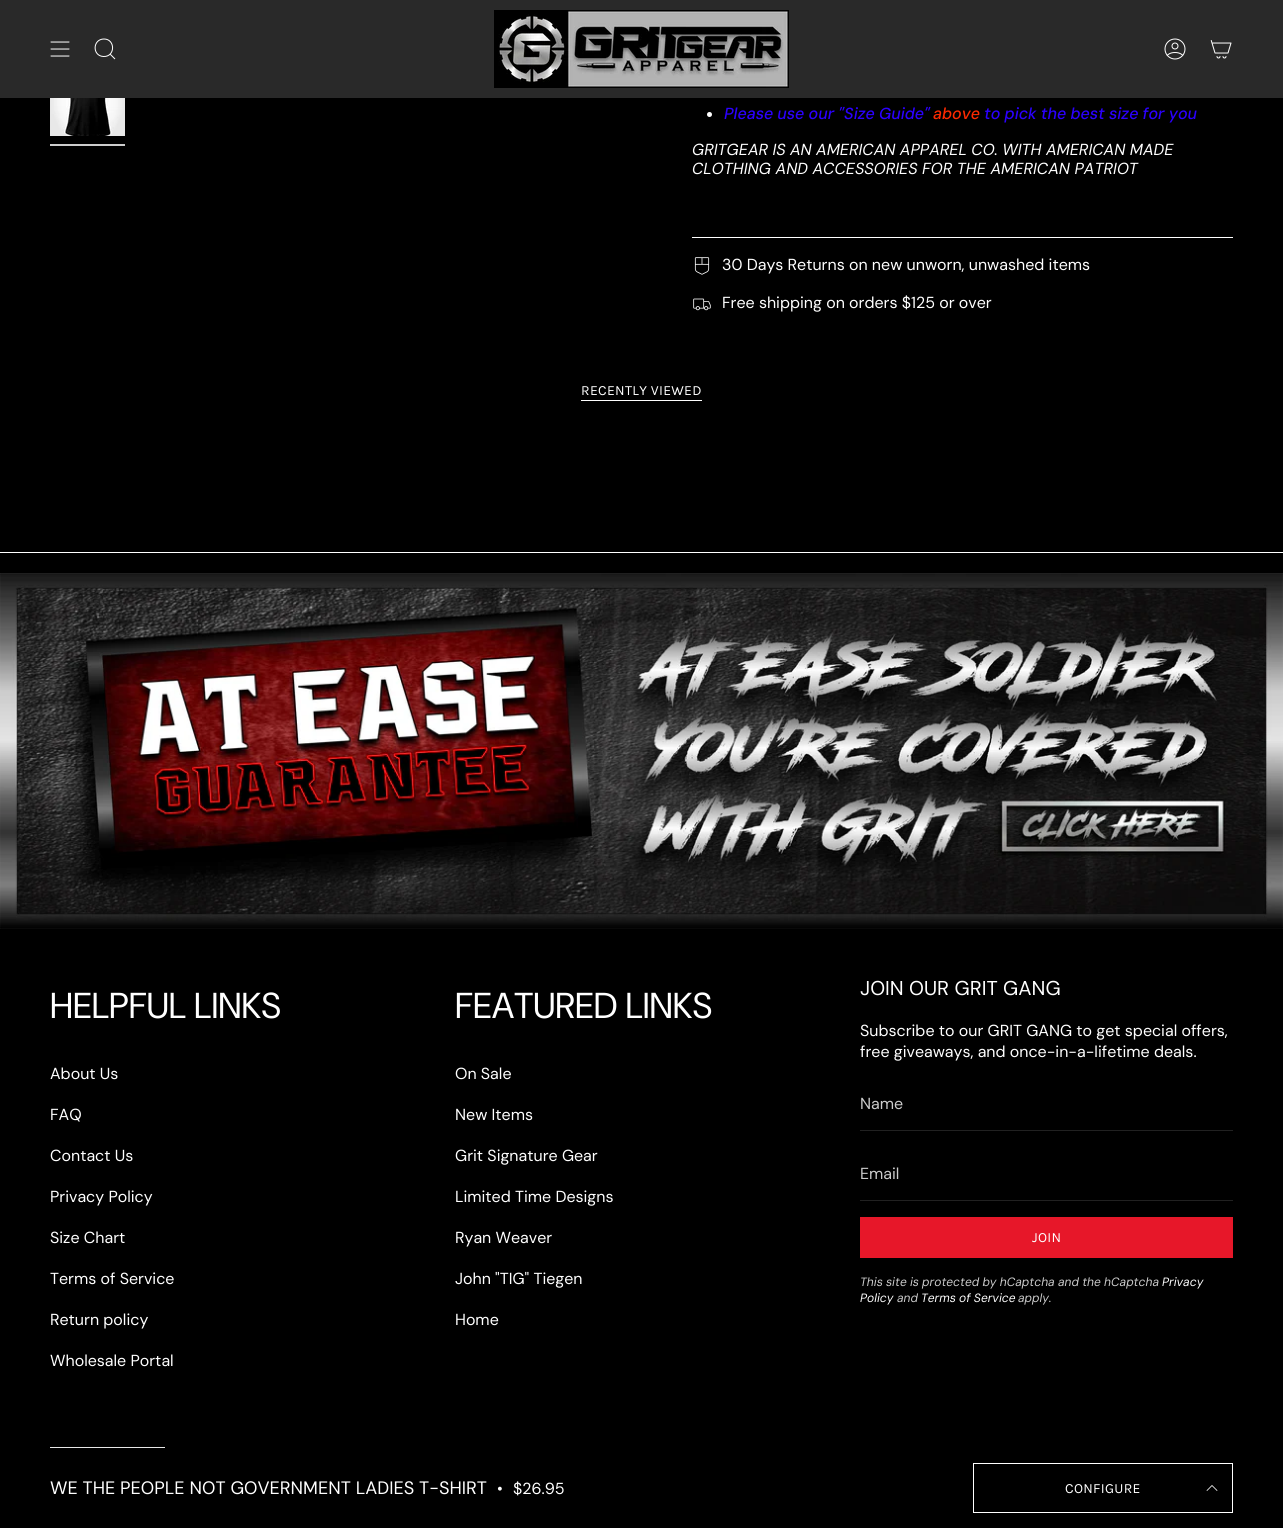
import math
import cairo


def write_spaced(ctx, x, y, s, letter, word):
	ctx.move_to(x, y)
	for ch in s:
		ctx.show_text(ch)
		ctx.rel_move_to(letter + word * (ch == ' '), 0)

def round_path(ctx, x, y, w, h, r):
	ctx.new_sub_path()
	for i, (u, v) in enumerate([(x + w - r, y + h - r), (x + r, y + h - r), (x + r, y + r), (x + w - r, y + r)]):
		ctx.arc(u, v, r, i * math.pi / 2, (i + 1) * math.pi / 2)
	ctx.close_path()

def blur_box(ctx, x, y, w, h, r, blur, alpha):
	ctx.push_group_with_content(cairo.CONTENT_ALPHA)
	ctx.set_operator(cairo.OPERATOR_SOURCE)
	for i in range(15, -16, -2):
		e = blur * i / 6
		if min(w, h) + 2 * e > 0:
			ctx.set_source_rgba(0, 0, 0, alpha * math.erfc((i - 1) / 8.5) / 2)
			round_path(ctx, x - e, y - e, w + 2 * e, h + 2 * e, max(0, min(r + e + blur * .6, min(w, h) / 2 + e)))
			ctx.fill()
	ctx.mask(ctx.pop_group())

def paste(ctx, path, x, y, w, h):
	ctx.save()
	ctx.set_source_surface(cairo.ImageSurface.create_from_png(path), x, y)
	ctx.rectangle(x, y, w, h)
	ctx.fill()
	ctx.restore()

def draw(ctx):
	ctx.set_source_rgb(1, 1, 1)
	ctx.paint()
	ctx.set_source_rgb(0.161, 0.161, 0.161)
	ctx.rectangle(0, 0, 1283, 98)
	ctx.fill()
	ctx.new_path()
	ctx.move_to(51, 42)
	ctx.line_to(69, 42)
	ctx.move_to(51, 49)
	ctx.line_to(69, 49)
	ctx.move_to(51, 56)
	ctx.line_to(69, 56)
	ctx.set_source_rgb(1, 1, 1)
	ctx.set_line_width(1)
	ctx.set_line_cap(cairo.LINE_CAP_ROUND)
	ctx.set_line_join(cairo.LINE_JOIN_ROUND)
	ctx.stroke()
	ctx.new_path()
	ctx.move_to(104, 39)
	ctx.curve_to(115.5, 39, 115.5, 57, 103.5, 56.5)
	ctx.curve_to(92, 56, 92.5, 39, 104, 39)
	ctx.close_path()
	ctx.move_to(110, 54)
	ctx.line_to(115, 59)
	ctx.set_line_cap(cairo.LINE_CAP_BUTT)
	ctx.set_line_join(cairo.LINE_JOIN_MITER)
	ctx.stroke()
	paste(ctx, 'media/1.png', 494, 10, 295, 78)
	paste(ctx, 'media/2.png', 1164, 38, 22, 22)
	paste(ctx, 'media/3.png', 1210, 40, 22, 19)
	ctx.set_source_rgb(0, 0, 0)
	ctx.rectangle(0, 98, 1283, 475)
	ctx.fill()
	paste(ctx, 'media/4.png', 50, 98, 75, 38)
	ctx.set_source_rgb(0.8, 0.8, 0.8)
	ctx.rectangle(50, 144, 75, 2)
	ctx.fill()
	ctx.set_source_rgb(1, 1, 1)
	ctx.arc(709.5, 114.5, 2.5, 0, 2 * math.pi)
	ctx.fill()
	ctx.select_font_face('DM Sans Medium', cairo.FONT_SLANT_ITALIC)
	ctx.set_font_size(16)
	ctx.set_source_rgb(0.169, 0, 1)
	ctx.move_to(724, 119)
	ctx.show_text('Please use our "Size Guide"')
	ctx.set_source_rgb(1, 0.165, 0)
	ctx.move_to(933, 119)
	ctx.show_text('above')
	ctx.set_source_rgb(0.169, 0, 1)
	ctx.move_to(984, 119)
	ctx.show_text('to pick the best size for you')
	ctx.select_font_face('DM Sans', cairo.FONT_SLANT_ITALIC)
	ctx.set_source_rgb(1, 1, 1)
	ctx.move_to(692, 155)
	ctx.show_text('GRITGEAR IS AN AMERICAN APPAREL CO. WITH AMERICAN MADE')
	write_spaced(ctx, 692, 174, 'CLOTHING AND ACCESSORIES FOR THE AMERICAN PATRIOT', 0, 0.25)
	ctx.rectangle(692, 237, 541, 1)
	ctx.fill()
	paste(ctx, 'media/5.png', 694, 257, 16, 18)
	ctx.select_font_face('DM Sans')
	ctx.move_to(722, 270)
	ctx.show_text('30 Days Returns on new unworn, unwashed items')
	paste(ctx, 'media/6.png', 693, 298, 18, 13)
	ctx.move_to(722, 308)
	ctx.show_text('Free shipping on orders $125 or over')
	ctx.set_source_rgb(0, 0, 0)
	ctx.rectangle(0, 929, 1283, 519)
	ctx.fill()
	ctx.rectangle(50.5, 1447.5, 114, 45)
	ctx.set_source_rgb(1, 1, 1)
	ctx.stroke()
	ctx.set_source_rgb(0, 0, 0)
	blur_box(ctx, 0, 1448, 1283, 80, 0, 5, 0.2)
	ctx.set_source_rgb(0, 0, 0)
	ctx.rectangle(0, 1448, 1283, 80)
	ctx.fill()
	ctx.select_font_face('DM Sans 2')
	ctx.set_font_size(18)
	ctx.set_source_rgb(1, 1, 1)
	ctx.move_to(50, 1494)
	ctx.show_text('WE THE PEOPLE NOT GOVERNMENT LADIES T-SHIRT')
	ctx.select_font_face('DM Sans')
	ctx.set_font_size(16)
	ctx.move_to(497, 1494)
	ctx.show_text('•')
	ctx.move_to(513, 1494)
	ctx.show_text('$26.95')
	ctx.rectangle(973.5, 1463.5, 259, 49)
	ctx.stroke()
	ctx.select_font_face('Karla')
	ctx.set_font_size(14)
	write_spaced(ctx, 1065, 1493, 'CONFIGURE', 0.3, 0)
	ctx.new_path()
	ctx.move_to(1207, 1490.5)
	ctx.line_to(1212, 1485.5)
	ctx.line_to(1217, 1490.5)
	ctx.set_line_width(0.8)
	ctx.set_line_cap(cairo.LINE_CAP_ROUND)
	ctx.set_line_join(cairo.LINE_JOIN_ROUND)
	ctx.stroke()
	write_spaced(ctx, 581, 395, 'RECENTLY VIEWED', 0.3, 0)
	ctx.rectangle(581, 400, 121, 1)
	ctx.fill()
	ctx.rectangle(0, 552, 1283, 1)
	ctx.fill()
	paste(ctx, 'media/7.png', 0, 573, 1283, 356)
	ctx.select_font_face('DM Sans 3')
	ctx.set_font_size(36)
	ctx.move_to(50, 1018)
	ctx.show_text('HELPFUL LINKS')
	ctx.select_font_face('DM Sans')
	ctx.set_font_size(16)
	for x, y, s in [
		(50, 1079, 'About Us'),
		(50, 1120, 'FAQ'),
		(50, 1161, 'Contact Us'),
		(50, 1202, 'Privacy Policy'),
		(50, 1243, 'Size Chart'),
		(50, 1284, 'Terms of Service'),
		(50, 1325, 'Return policy'),
		(50, 1366, 'Wholesale Portal'),
	]:
		ctx.move_to(x, y)
		ctx.show_text(s)
	ctx.select_font_face('DM Sans 3')
	ctx.set_font_size(36)
	ctx.move_to(455, 1018)
	ctx.show_text('FEATURED LINKS')
	ctx.select_font_face('DM Sans')
	ctx.set_font_size(16)
	for x, y, s in [
		(455, 1079, 'On Sale'),
		(455, 1120, 'New Items'),
		(455, 1161, 'Grit Signature Gear'),
		(455, 1202, 'Limited Time Designs'),
		(455, 1243, 'Ryan Weaver'),
		(455, 1284, 'John "TIG" Tiegen'),
		(455, 1325, 'Home'),
	]:
		ctx.move_to(x, y)
		ctx.show_text(s)
	ctx.select_font_face('DM Sans 2')
	ctx.set_font_size(20)
	ctx.move_to(860, 995)
	ctx.show_text('JOIN OUR GRIT GANG')
	ctx.select_font_face('DM Sans')
	ctx.set_font_size(16)
	ctx.move_to(860, 1036)
	ctx.show_text('Subscribe to our GRIT GANG to get special offers,')
	ctx.move_to(860, 1057)
	ctx.show_text('free giveaways, and once-in-a-lifetime deals.')
	ctx.set_source_rgb(0.129, 0.129, 0.129)
	ctx.rectangle(860, 1130, 373, 1)
	ctx.fill()
	ctx.set_source_rgb(0.8, 0.8, 0.8)
	ctx.move_to(860, 1109)
	ctx.show_text('Name')
	ctx.set_source_rgb(0.129, 0.129, 0.129)
	ctx.rectangle(860, 1200, 373, 1)
	ctx.fill()
	ctx.set_source_rgb(0.8, 0.8, 0.8)
	ctx.move_to(860, 1179)
	ctx.show_text('Email')
	ctx.set_source_rgb(0.906, 0.09, 0.161)
	ctx.rectangle(860, 1217, 373, 41)
	ctx.fill()
	ctx.select_font_face('Karla')
	ctx.set_font_size(14)
	ctx.set_source_rgb(1, 1, 1)
	write_spaced(ctx, 1032, 1242, 'JOIN', 0.3, 0)
	ctx.select_font_face('DM Sans', cairo.FONT_SLANT_ITALIC)
	ctx.set_font_size(12)
	ctx.set_source_rgb(0.8, 0.8, 0.8)
	ctx.move_to(860, 1286)
	ctx.show_text('This site is protected by hCaptcha and the hCaptcha')
	ctx.set_source_rgb(1, 1, 1)
	ctx.move_to(1162, 1286)
	ctx.show_text('Privacy')
	ctx.move_to(860, 1302)
	ctx.show_text('Policy')
	ctx.set_source_rgb(0.8, 0.8, 0.8)
	ctx.move_to(897, 1302)
	ctx.show_text('and')
	ctx.set_source_rgb(1, 1, 1)
	ctx.move_to(921, 1302)
	ctx.show_text('Terms of Service')
	ctx.set_source_rgb(0.8, 0.8, 0.8)
	ctx.move_to(1018, 1302)
	ctx.show_text('apply.')


surface = cairo.ImageSurface(cairo.FORMAT_RGB24, 1283, 1528)
ctx = cairo.Context(surface)
options = cairo.FontOptions()
options.set_hint_metrics(cairo.HINT_METRICS_OFF)
options.set_hint_style(cairo.HINT_STYLE_NONE)
ctx.set_font_options(options)
ctx.set_miter_limit(4)
draw(ctx)
surface.write_to_png('image.png')
